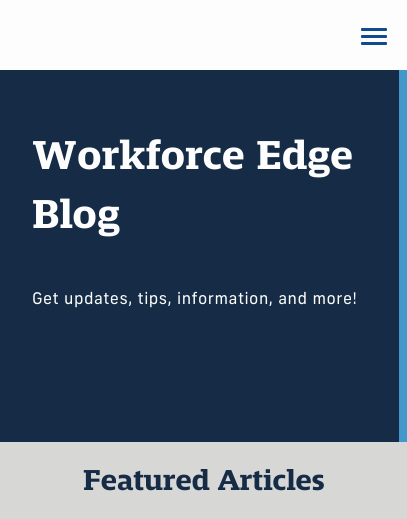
import math
import cairo


def write_spaced(ctx, x, y, s, letter, word):
	ctx.move_to(x, y)
	for ch in s:
		ctx.show_text(ch)
		ctx.rel_move_to(letter + word * (ch == ' '), 0)

def round_path(ctx, x, y, w, h, r):
	ctx.new_sub_path()
	for i, (u, v) in enumerate([(x + w - r, y + h - r), (x + r, y + h - r), (x + r, y + r), (x + w - r, y + r)]):
		ctx.arc(u, v, r, i * math.pi / 2, (i + 1) * math.pi / 2)
	ctx.close_path()

def draw(ctx):
	ctx.set_source_rgb(0.843, 0.847, 0.839)
	ctx.paint()
	ctx.set_source_rgb(0.259, 0.592, 0.796)
	ctx.rectangle(399, 64, 8, 378)
	ctx.fill()
	ctx.set_source_rgb(0.992, 0.992, 0.992)
	ctx.rectangle(0, 0, 407, 70)
	ctx.fill()
	ctx.set_source_rgb(0.063, 0.294, 0.565)
	round_path(ctx, 361, 28, 26, 3, 1)
	ctx.fill()
	round_path(ctx, 361, 35, 26, 3, 1)
	ctx.fill()
	round_path(ctx, 361, 42, 26, 3, 1)
	ctx.fill()
	ctx.set_source_rgb(0.086, 0.173, 0.275)
	ctx.rectangle(0, 70, 399, 372)
	ctx.fill()
	ctx.select_font_face('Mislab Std', cairo.FONT_SLANT_NORMAL, cairo.FONT_WEIGHT_BOLD)
	ctx.set_font_size(42)
	ctx.set_source_rgb(0.992, 0.992, 0.992)
	ctx.move_to(32, 169)
	ctx.show_text('Workforce Edge')
	ctx.move_to(32, 228)
	ctx.show_text('Blog')
	ctx.select_font_face('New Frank')
	ctx.set_font_size(16)
	write_spaced(ctx, 32, 304, 'Get updates, tips, information, and more!', 0.5, 0)
	ctx.select_font_face('Mislab Std', cairo.FONT_SLANT_NORMAL, cairo.FONT_WEIGHT_BOLD)
	ctx.set_font_size(30)
	ctx.set_source_rgb(0.086, 0.173, 0.275)
	ctx.move_to(83, 490)
	ctx.show_text('Featured Articles')


surface = cairo.ImageSurface(cairo.FORMAT_RGB24, 407, 519)
ctx = cairo.Context(surface)
options = cairo.FontOptions()
options.set_hint_metrics(cairo.HINT_METRICS_OFF)
options.set_hint_style(cairo.HINT_STYLE_NONE)
ctx.set_font_options(options)
ctx.set_miter_limit(4)
draw(ctx)
surface.write_to_png('image.png')
